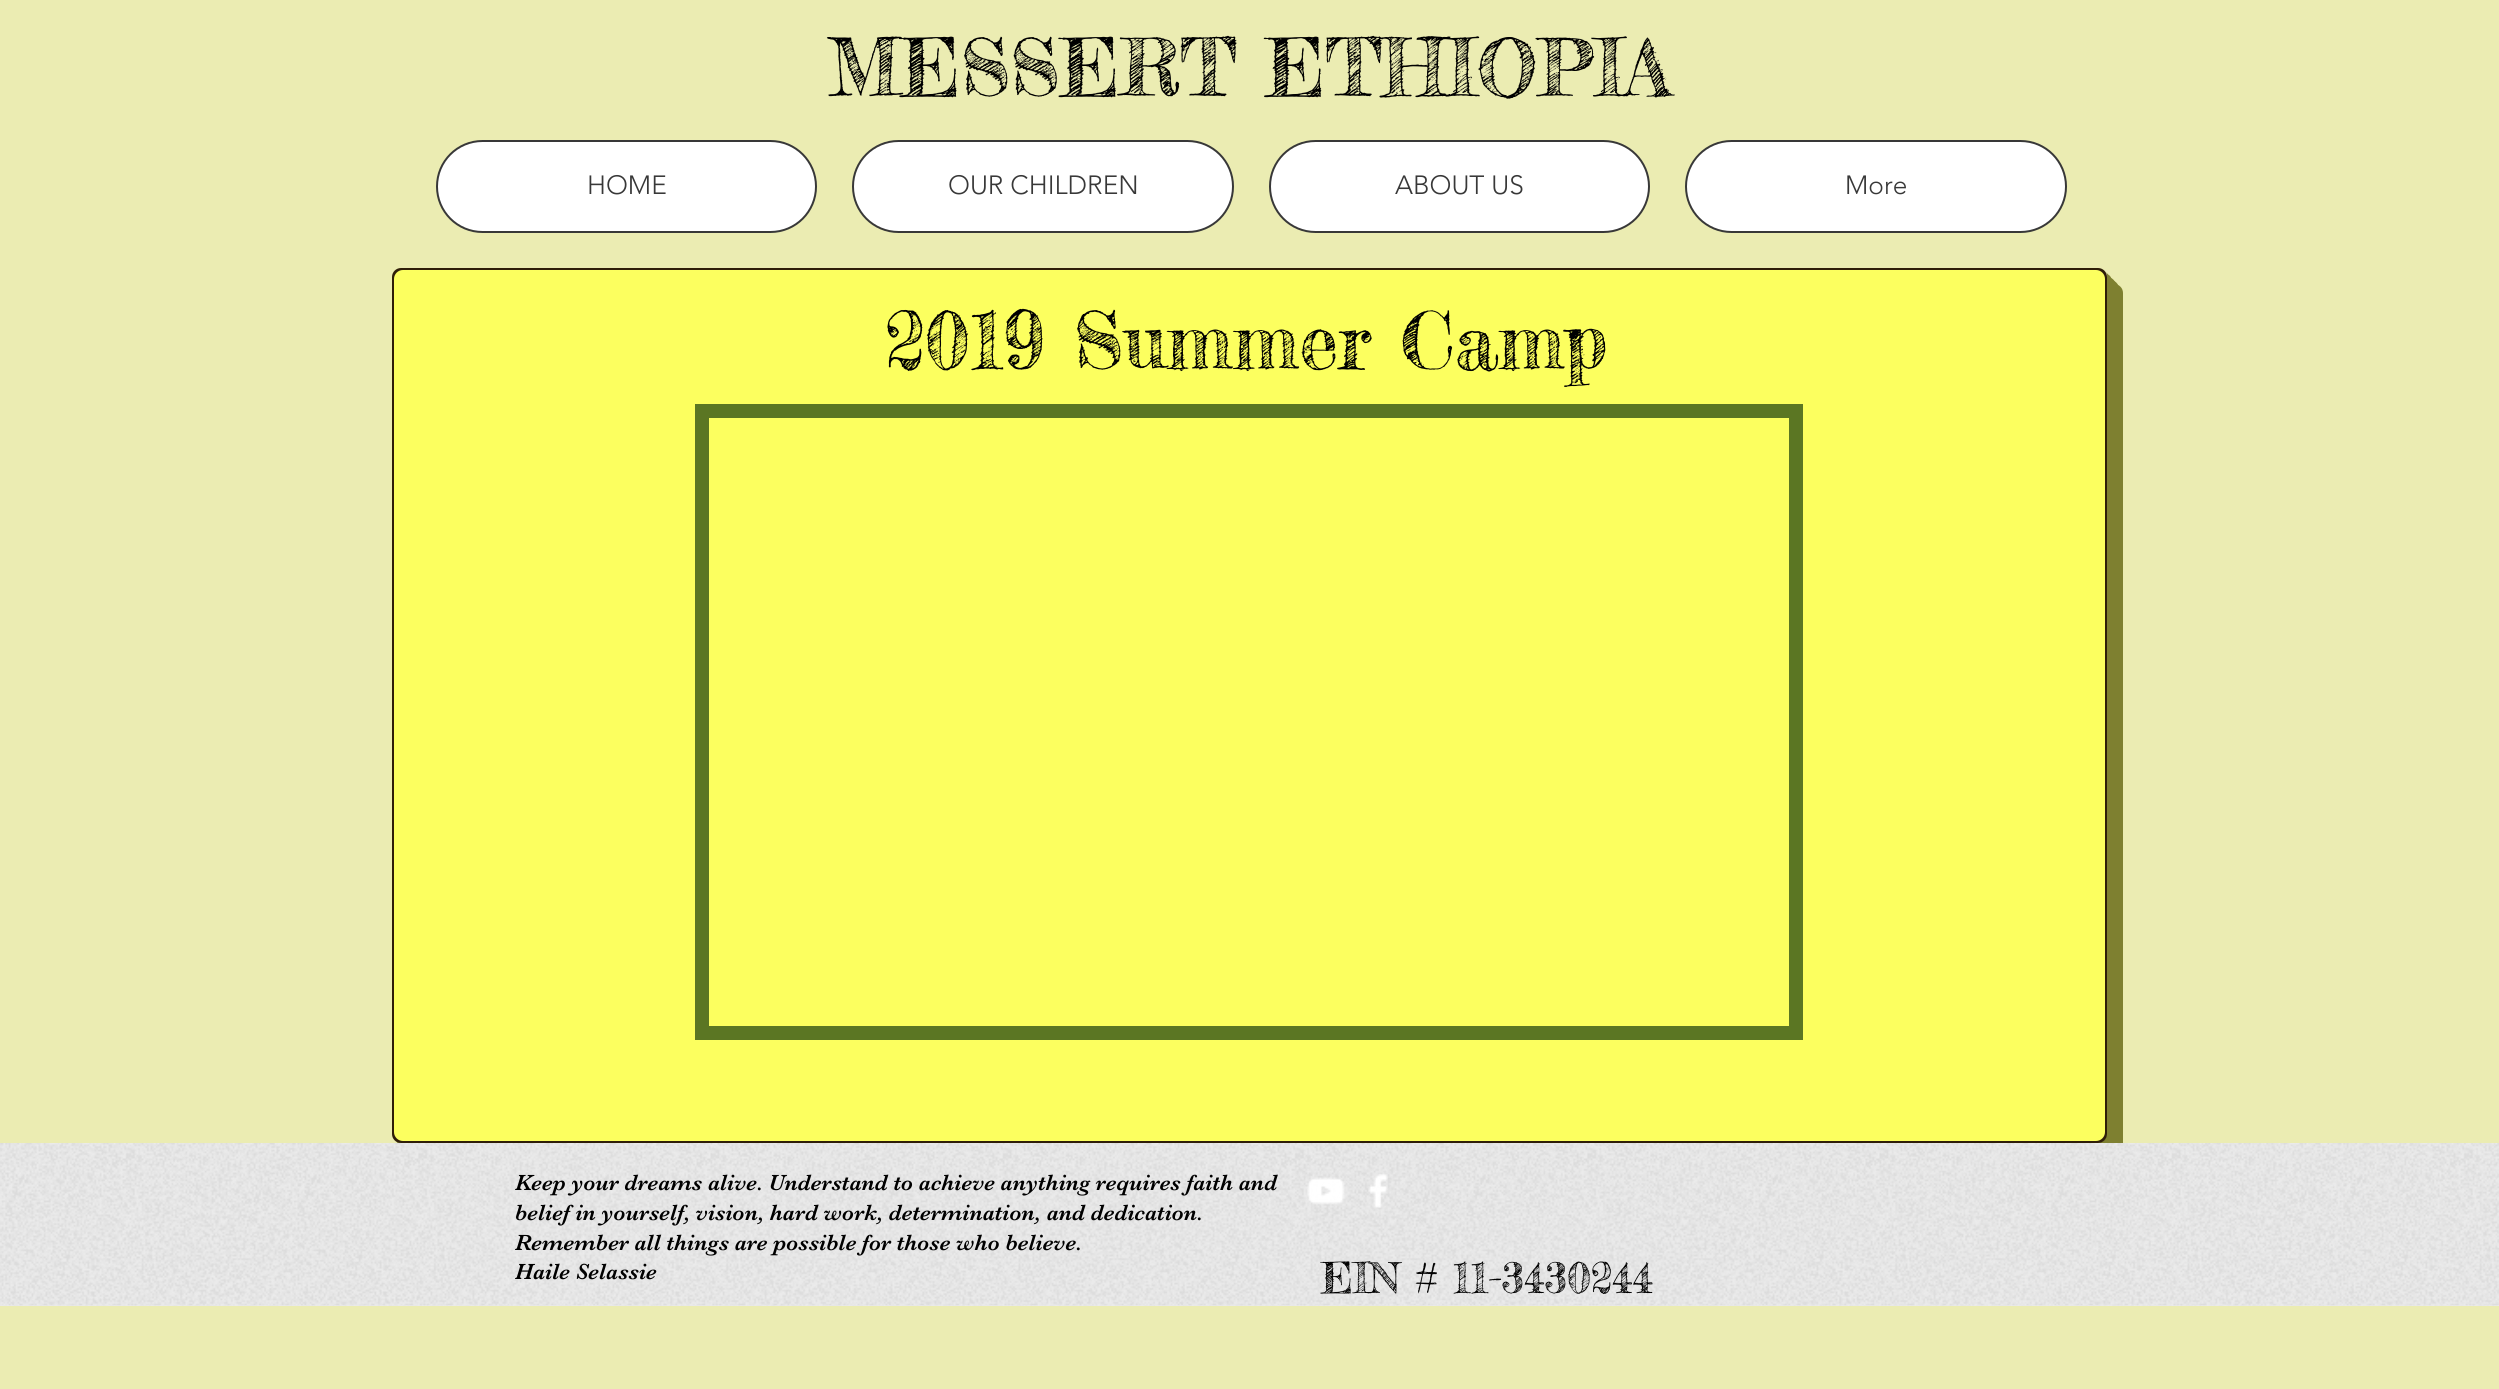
import math
import cairo


def round_path(ctx, x, y, w, h, r):
	ctx.new_sub_path()
	for i, (u, v) in enumerate([(x + w - r, y + h - r), (x + r, y + h - r), (x + r, y + r), (x + w - r, y + r)]):
		ctx.arc(u, v, r, i * math.pi / 2, (i + 1) * math.pi / 2)
	ctx.close_path()

def paste(ctx, path, x, y, w, h):
	ctx.save()
	ctx.set_source_surface(cairo.ImageSurface.create_from_png(path), x, y)
	ctx.rectangle(x, y, w, h)
	ctx.fill()
	ctx.restore()

def draw(ctx):
	ctx.set_source_rgb(0.918, 0.922, 0.698)
	ctx.paint()
	ctx.select_font_face('Fredericka the Great')
	ctx.set_font_size(78.75)
	ctx.set_source_rgb(0, 0, 0)
	ctx.move_to(828, 96)
	ctx.show_text('MESSERT ETHIOPIA')
	ctx.set_source_rgb(1, 1, 1)
	round_path(ctx, 437, 141, 379, 91, 45.5)
	ctx.fill_preserve()
	ctx.set_source_rgb(0.22, 0.22, 0.22)
	ctx.stroke()
	ctx.select_font_face('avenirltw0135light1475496 Light')
	ctx.set_font_size(26.25)
	ctx.move_to(587, 194)
	ctx.show_text('HOME')
	ctx.set_source_rgb(1, 1, 1)
	round_path(ctx, 853, 141, 380, 91, 45.5)
	ctx.fill_preserve()
	ctx.set_source_rgb(0.22, 0.22, 0.22)
	ctx.stroke()
	ctx.move_to(948, 194)
	ctx.show_text('OUR CHILDREN')
	ctx.set_source_rgb(1, 1, 1)
	round_path(ctx, 1270, 141, 379, 91, 45.5)
	ctx.fill_preserve()
	ctx.set_source_rgb(0.22, 0.22, 0.22)
	ctx.stroke()
	ctx.move_to(1395, 194)
	ctx.show_text('ABOUT US')
	ctx.set_source_rgb(1, 1, 1)
	round_path(ctx, 1686, 141, 380, 91, 45.5)
	ctx.fill_preserve()
	ctx.set_source_rgb(0.22, 0.22, 0.22)
	ctx.stroke()
	ctx.move_to(1845, 194)
	ctx.show_text('More')
	ctx.set_source_rgb(0.494, 0.502, 0.188)
	ctx.new_path()
	ctx.move_to(408, 1143)
	ctx.line_to(408, 1150)
	ctx.curve_to(408, 1155, 412, 1159, 417, 1159)
	ctx.line_to(2114, 1159)
	ctx.curve_to(2119, 1159, 2123, 1155, 2123, 1150)
	ctx.line_to(2123, 293)
	ctx.curve_to(2123, 288, 2119, 284, 2114, 284)
	ctx.line_to(2107, 284)
	ctx.line_to(2107, 1134)
	ctx.curve_to(2107, 1139, 2103, 1143, 2098, 1143)
	ctx.close_path()
	ctx.fill()
	ctx.new_path()
	ctx.move_to(404, 1143)
	ctx.line_to(404, 1146)
	ctx.curve_to(404, 1151, 408, 1155, 413, 1155)
	ctx.line_to(2110, 1155)
	ctx.curve_to(2115, 1155, 2119, 1151, 2119, 1146)
	ctx.line_to(2119, 289)
	ctx.curve_to(2119, 284, 2115, 280, 2110, 280)
	ctx.line_to(2107, 280)
	ctx.line_to(2107, 1134)
	ctx.curve_to(2107, 1139, 2103, 1143, 2098, 1143)
	ctx.close_path()
	ctx.fill()
	ctx.new_path()
	ctx.move_to(401, 1143)
	ctx.curve_to(401, 1148, 405, 1152, 410, 1152)
	ctx.line_to(2107, 1152)
	ctx.curve_to(2112, 1152, 2116, 1148, 2116, 1143)
	ctx.line_to(2116, 286)
	ctx.curve_to(2116, 281, 2112, 277, 2107, 277)
	ctx.line_to(2107, 1134)
	ctx.curve_to(2107, 1139, 2103, 1143, 2098, 1143)
	ctx.close_path()
	ctx.fill()
	ctx.new_path()
	ctx.move_to(398, 1142)
	ctx.curve_to(399, 1146, 402, 1148, 406, 1148)
	ctx.line_to(2103, 1148)
	ctx.curve_to(2108, 1148, 2112, 1144, 2112, 1139)
	ctx.line_to(2112, 282)
	ctx.curve_to(2112, 278, 2110, 275, 2107, 274)
	ctx.line_to(2107, 276)
	ctx.line_to(2107, 1134)
	ctx.curve_to(2107, 1139, 2103, 1143, 2098, 1143)
	ctx.line_to(401, 1143)
	ctx.close_path()
	ctx.fill()
	ctx.new_path()
	ctx.move_to(396, 1141)
	ctx.curve_to(397, 1143, 400, 1145, 403, 1145)
	ctx.line_to(2100, 1145)
	ctx.curve_to(2105, 1145, 2109, 1141, 2109, 1136)
	ctx.line_to(2109, 279)
	ctx.curve_to(2109, 276, 2108, 274, 2106, 272)
	ctx.curve_to(2107, 273, 2107, 275, 2107, 276)
	ctx.line_to(2107, 1134)
	ctx.curve_to(2107, 1139, 2103, 1143, 2098, 1143)
	ctx.line_to(401, 1143)
	ctx.curve_to(399, 1143, 397, 1142, 396, 1141)
	ctx.close_path()
	ctx.fill()
	ctx.set_source_rgb(0.184, 0.118, 0.035)
	round_path(ctx, 392, 268, 1715, 875, 9)
	ctx.fill()
	ctx.set_source_rgb(0.988, 1, 0.373)
	round_path(ctx, 394, 270, 1711, 871, 9)
	ctx.fill()
	ctx.select_font_face('Fredericka the Great')
	ctx.set_font_size(78.75)
	ctx.set_source_rgb(0, 0, 0)
	ctx.move_to(885, 369)
	ctx.show_text('2019 Summer Camp')
	ctx.rectangle(702, 411, 1094, 622)
	ctx.set_source_rgb(0.357, 0.463, 0.137)
	ctx.set_line_width(14)
	ctx.stroke()
	ctx.set_source_rgb(0.918, 0.918, 0.918)
	ctx.rectangle(0, 1143, 2499, 163)
	ctx.fill()
	paste(ctx, 'media/1.png', 0, 1143, 2499, 163)
	ctx.select_font_face('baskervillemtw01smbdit')
	ctx.set_font_size(22.75)
	ctx.set_source_rgb(0, 0, 0)
	for x, y, s in [
		(515, 1190, 'Keep your dreams alive. Understand to achieve anything requires faith and'),
		(515, 1220, 'belief in yourself, vision, hard work, determination, and dedication.'),
		(515, 1250, 'Remember all things are possible for those who believe.'),
		(515, 1279, 'Haile Selassie'),
	]:
		ctx.move_to(x, y)
		ctx.show_text(s)
	paste(ctx, 'media/2.png', 1307, 1177, 38, 28)
	paste(ctx, 'media/3.png', 1368, 1174, 20, 34)
	ctx.select_font_face('Fredericka the Great')
	ctx.set_font_size(42)
	ctx.move_to(1321, 1293)
	ctx.show_text('EIN # 11-3430244')


surface = cairo.ImageSurface(cairo.FORMAT_RGB24, 2499, 1389)
ctx = cairo.Context(surface)
options = cairo.FontOptions()
options.set_hint_metrics(cairo.HINT_METRICS_OFF)
options.set_hint_style(cairo.HINT_STYLE_NONE)
ctx.set_font_options(options)
ctx.set_miter_limit(4)
draw(ctx)
surface.write_to_png('image.png')
